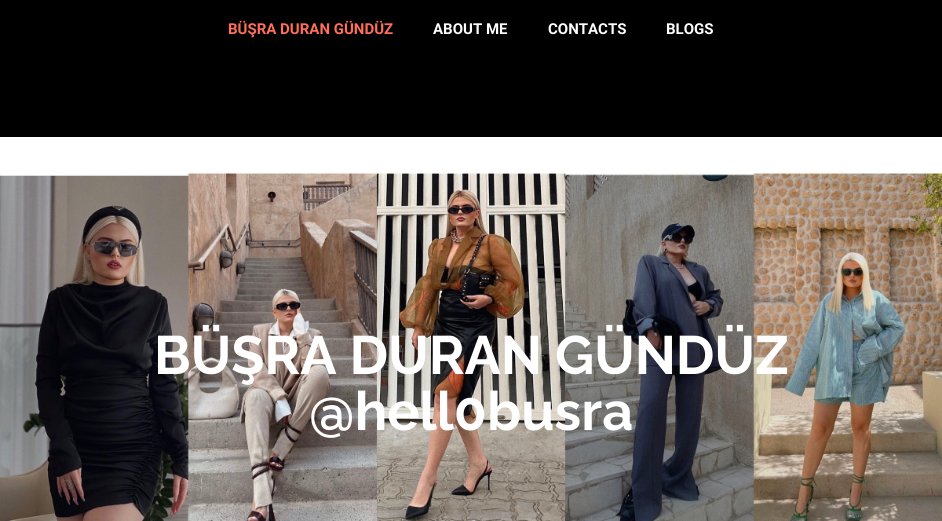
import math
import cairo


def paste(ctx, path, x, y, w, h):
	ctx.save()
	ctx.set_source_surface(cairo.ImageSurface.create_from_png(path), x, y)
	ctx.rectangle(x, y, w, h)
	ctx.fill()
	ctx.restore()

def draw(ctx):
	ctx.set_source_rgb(1, 1, 1)
	ctx.paint()
	ctx.set_source_rgb(0, 0, 0)
	ctx.rectangle(0, 0, 942, 137)
	ctx.fill()
	ctx.select_font_face('Roboto', cairo.FONT_SLANT_NORMAL, cairo.FONT_WEIGHT_BOLD)
	ctx.set_font_size(15)
	ctx.set_source_rgb(1, 0.435, 0.353)
	ctx.move_to(228, 34)
	ctx.show_text('BÜŞRA DURAN GÜNDÜZ')
	ctx.set_source_rgb(1, 1, 1)
	for x, y, s in [
		(433, 34, 'ABOUT ME'),
		(548, 34, 'CONTACTS'),
		(666, 34, 'BLOGS'),
	]:
		ctx.move_to(x, y)
		ctx.show_text(s)
	paste(ctx, 'media/1.png', 0, 170, 942, 351)
	ctx.select_font_face('Raleway', cairo.FONT_SLANT_NORMAL, cairo.FONT_WEIGHT_BOLD)
	ctx.set_font_size(54)
	ctx.move_to(154, 374)
	ctx.show_text('BÜŞRA DURAN GÜNDÜZ')
	ctx.move_to(309, 430)
	ctx.show_text('@hell0busra')


surface = cairo.ImageSurface(cairo.FORMAT_RGB24, 942, 521)
ctx = cairo.Context(surface)
options = cairo.FontOptions()
options.set_hint_metrics(cairo.HINT_METRICS_OFF)
options.set_hint_style(cairo.HINT_STYLE_NONE)
ctx.set_font_options(options)
ctx.set_miter_limit(4)
draw(ctx)
surface.write_to_png('image.png')
